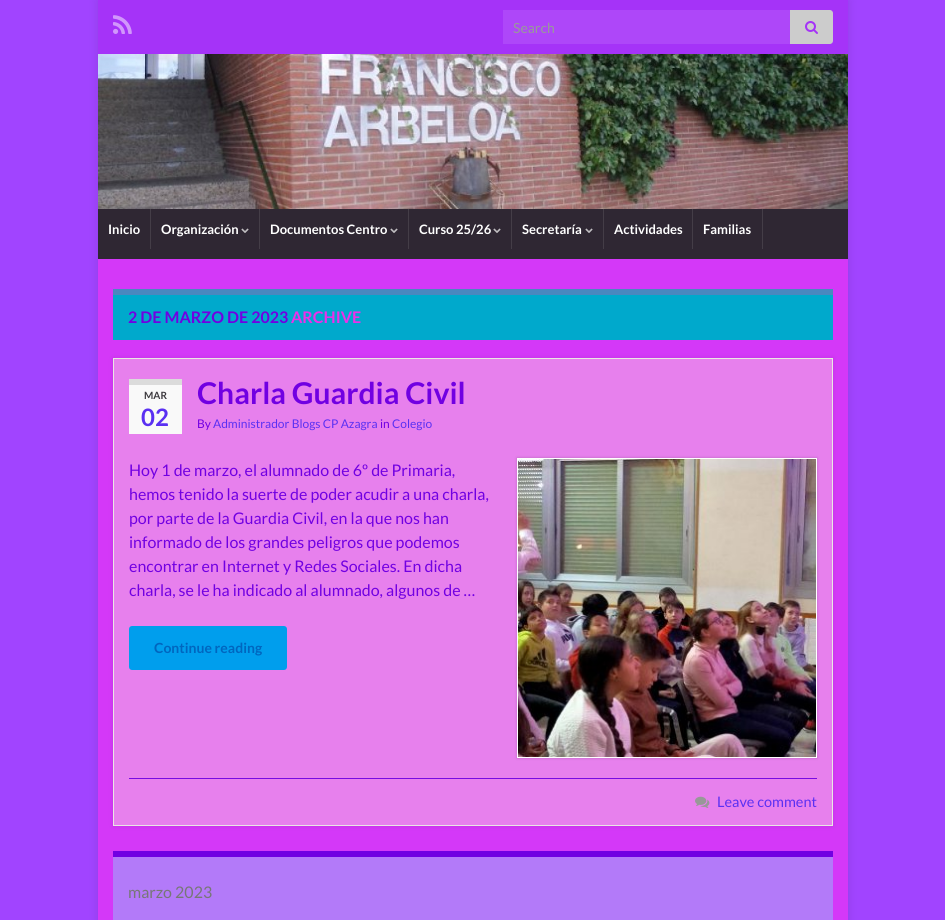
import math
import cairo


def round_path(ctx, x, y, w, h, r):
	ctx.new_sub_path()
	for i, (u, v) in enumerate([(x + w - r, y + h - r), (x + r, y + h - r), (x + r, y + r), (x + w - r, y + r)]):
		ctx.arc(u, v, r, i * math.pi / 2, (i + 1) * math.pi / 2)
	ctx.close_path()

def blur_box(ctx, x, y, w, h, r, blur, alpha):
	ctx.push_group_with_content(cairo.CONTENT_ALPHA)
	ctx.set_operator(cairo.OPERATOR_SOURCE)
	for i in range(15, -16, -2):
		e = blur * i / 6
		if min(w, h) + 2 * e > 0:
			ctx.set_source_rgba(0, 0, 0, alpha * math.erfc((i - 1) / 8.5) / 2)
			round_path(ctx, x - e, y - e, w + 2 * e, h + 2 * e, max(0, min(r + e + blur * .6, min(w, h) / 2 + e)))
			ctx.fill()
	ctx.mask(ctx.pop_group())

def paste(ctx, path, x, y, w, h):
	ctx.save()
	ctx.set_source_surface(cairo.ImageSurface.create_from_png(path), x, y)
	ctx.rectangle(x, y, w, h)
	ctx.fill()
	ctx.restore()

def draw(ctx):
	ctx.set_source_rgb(0.631, 0.267, 1)
	ctx.paint()
	ctx.set_source_rgb(0, 0, 0)
	blur_box(ctx, 98, 0, 750, 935, 0, 5, 0.1)
	ctx.set_source_rgb(0.647, 0.2, 0.969)
	ctx.rectangle(98, 0, 750, 54)
	ctx.fill()
	paste(ctx, 'media/1.png', 113, 15, 19, 19)
	ctx.set_source_rgb(0.682, 0.278, 0.973)
	ctx.rectangle(503, 10, 287, 34)
	ctx.fill()
	ctx.select_font_face('Lato')
	ctx.set_font_size(14)
	ctx.set_source_rgb(0.6, 0.6, 0.6)
	ctx.move_to(513, 33)
	ctx.show_text('Search')
	ctx.set_source_rgb(0.8, 0.8, 0.8)
	ctx.new_path()
	ctx.move_to(790, 10)
	ctx.line_to(830, 10)
	ctx.curve_to(831.5, 10, 833, 11.5, 833, 13)
	ctx.line_to(833, 41)
	ctx.curve_to(833, 42.5, 831.5, 44, 830, 44)
	ctx.line_to(790, 44)
	ctx.close_path()
	ctx.fill()
	paste(ctx, 'media/2.png', 805, 21, 13, 13)
	paste(ctx, 'media/3.png', 98, 54, 750, 155)
	ctx.set_source_rgb(0.184, 0.153, 0.2)
	ctx.rectangle(98, 209, 750, 50)
	ctx.fill()
	ctx.set_source_rgb(0.267, 0.239, 0.278)
	ctx.rectangle(150, 209, 1, 40)
	ctx.fill()
	ctx.select_font_face('Lato', cairo.FONT_SLANT_NORMAL, cairo.FONT_WEIGHT_BOLD)
	ctx.set_font_size(13)
	ctx.set_source_rgb(1, 1, 1)
	ctx.move_to(108, 234)
	ctx.show_text('Inicio')
	ctx.set_source_rgb(0.267, 0.239, 0.278)
	ctx.rectangle(259, 209, 1, 40)
	ctx.fill()
	ctx.set_source_rgb(1, 1, 1)
	ctx.move_to(161, 234)
	ctx.show_text('Organización')
	paste(ctx, 'media/4.png', 241, 228, 8, 5)
	ctx.set_source_rgb(0.267, 0.239, 0.278)
	ctx.rectangle(408, 209, 1, 40)
	ctx.fill()
	ctx.set_source_rgb(1, 1, 1)
	ctx.move_to(270, 234)
	ctx.show_text('Documentos Centro')
	paste(ctx, 'media/4.png', 390, 228, 8, 5)
	ctx.set_source_rgb(0.267, 0.239, 0.278)
	ctx.rectangle(511, 209, 1, 40)
	ctx.fill()
	ctx.set_source_rgb(1, 1, 1)
	ctx.move_to(419, 234)
	ctx.show_text('Curso 25/26')
	paste(ctx, 'media/4.png', 493, 228, 8, 5)
	ctx.set_source_rgb(0.267, 0.239, 0.278)
	ctx.rectangle(603, 209, 1, 40)
	ctx.fill()
	ctx.set_source_rgb(1, 1, 1)
	ctx.move_to(522, 234)
	ctx.show_text('Secretaría')
	paste(ctx, 'media/4.png', 585, 228, 8, 5)
	ctx.set_source_rgb(0.267, 0.239, 0.278)
	ctx.rectangle(692, 209, 1, 40)
	ctx.fill()
	ctx.set_source_rgb(1, 1, 1)
	ctx.move_to(614, 234)
	ctx.show_text('Actividades')
	ctx.set_source_rgb(0.267, 0.239, 0.278)
	ctx.rectangle(762, 209, 1, 40)
	ctx.fill()
	ctx.set_source_rgb(1, 1, 1)
	ctx.move_to(703, 234)
	ctx.show_text('Familias')
	ctx.set_source_rgb(0.831, 0.22, 0.969)
	ctx.rectangle(98, 259, 750, 661)
	ctx.fill()
	ctx.set_source_rgb(0, 0.663, 0.8)
	ctx.rectangle(113, 295, 720, 45)
	ctx.fill()
	ctx.set_source_rgb(0.29, 0.533, 0.749)
	ctx.rectangle(113, 289, 720, 6)
	ctx.fill()
	ctx.set_font_size(16)
	ctx.set_source_rgb(0.443, 0, 0.886)
	ctx.move_to(128, 323)
	ctx.show_text('2 DE MARZO DE 2023')
	ctx.set_source_rgb(0.929, 0.184, 0.914)
	ctx.move_to(291, 323)
	ctx.show_text('ARCHIVE')
	ctx.set_source_rgb(0, 0, 0)
	blur_box(ctx, 113, 358, 720, 468, 0, 2.5, 0.1)
	ctx.set_source_rgb(0.906, 0.502, 0.929)
	ctx.rectangle(113.5, 358.5, 719, 467)
	ctx.fill_preserve()
	ctx.set_source_rgb(0.914, 0.91, 0.89)
	ctx.set_line_width(1)
	ctx.stroke()
	ctx.set_source_rgb(0.976, 0.976, 0.976)
	ctx.rectangle(129, 385, 53, 49)
	ctx.fill()
	ctx.set_source_rgb(0.859, 0.859, 0.859)
	ctx.rectangle(129, 379, 53, 6)
	ctx.fill()
	ctx.set_font_size(10)
	ctx.set_source_rgb(0.231, 0.22, 0.239)
	ctx.move_to(144, 399)
	ctx.show_text('MAR')
	ctx.set_font_size(24)
	ctx.set_source_rgb(0.353, 0.188, 0.949)
	ctx.move_to(141, 426)
	ctx.show_text('02')
	ctx.set_font_size(30)
	ctx.set_source_rgb(0.443, 0, 0.886)
	ctx.move_to(197, 404)
	ctx.show_text('Charla Guardia Civil')
	ctx.select_font_face('Lato')
	ctx.set_font_size(12)
	ctx.move_to(197, 428)
	ctx.show_text('By')
	ctx.set_source_rgb(0.353, 0.188, 0.949)
	ctx.move_to(213, 428)
	ctx.show_text('Administrador Blogs CP Azagra')
	ctx.set_source_rgb(0.443, 0, 0.886)
	ctx.move_to(380, 428)
	ctx.show_text('in')
	ctx.set_source_rgb(0.353, 0.188, 0.949)
	ctx.move_to(392, 428)
	ctx.show_text('Colegio')
	ctx.set_font_size(16)
	ctx.set_source_rgb(0.443, 0, 0.886)
	for x, y, s in [
		(129, 476, 'Hoy 1 de marzo, el alumnado de 6º de Primaria,'),
		(129, 500, 'hemos tenido la suerte de poder acudir a una charla,'),
		(129, 524, 'por parte de la Guardia Civil, en la que nos han'),
		(129, 548, 'informado de los grandes peligros que podemos'),
		(129, 572, 'encontrar en Internet y Redes Sociales. En dicha'),
		(129, 596, 'charla, se le ha indicado al alumnado, algunos de …'),
	]:
		ctx.move_to(x, y)
		ctx.show_text(s)
	ctx.set_source_rgb(0, 0, 0)
	blur_box(ctx, 517, 458, 300, 300, 0, 1.5, 0.2)
	ctx.rectangle(517.5, 458.5, 299, 299)
	ctx.set_source_rgb(1, 1, 1)
	ctx.stroke()
	paste(ctx, 'media/5.png', 518, 459, 298, 298)
	ctx.set_source_rgb(0, 0.62, 0.929)
	round_path(ctx, 129, 626, 158, 44, 3)
	ctx.fill()
	ctx.select_font_face('Lato', cairo.FONT_SLANT_NORMAL, cairo.FONT_WEIGHT_BOLD)
	ctx.set_font_size(14)
	ctx.set_source_rgb(0, 0.4, 0.749)
	ctx.move_to(154, 653)
	ctx.show_text('Continue reading')
	ctx.set_source_rgb(0.467, 0.043, 0.886)
	ctx.rectangle(129, 778, 688, 1)
	ctx.fill()
	paste(ctx, 'media/6.png', 695, 796, 15, 12)
	ctx.select_font_face('Lato')
	ctx.set_font_size(14.5)
	ctx.set_source_rgb(0.353, 0.188, 0.949)
	ctx.move_to(717, 807)
	ctx.show_text('Leave comment')
	ctx.set_source_rgb(0.702, 0.478, 0.976)
	ctx.rectangle(113, 857, 720, 63)
	ctx.fill()
	ctx.set_source_rgb(0.443, 0, 0.886)
	ctx.rectangle(113, 851, 720, 6)
	ctx.fill()
	ctx.set_font_size(16)
	ctx.set_source_rgb(0.467, 0.467, 0.467)
	ctx.move_to(128, 898)
	ctx.show_text('marzo 2023')


surface = cairo.ImageSurface(cairo.FORMAT_RGB24, 945, 920)
ctx = cairo.Context(surface)
options = cairo.FontOptions()
options.set_hint_metrics(cairo.HINT_METRICS_OFF)
options.set_hint_style(cairo.HINT_STYLE_NONE)
ctx.set_font_options(options)
ctx.set_miter_limit(4)
draw(ctx)
surface.write_to_png('image.png')
